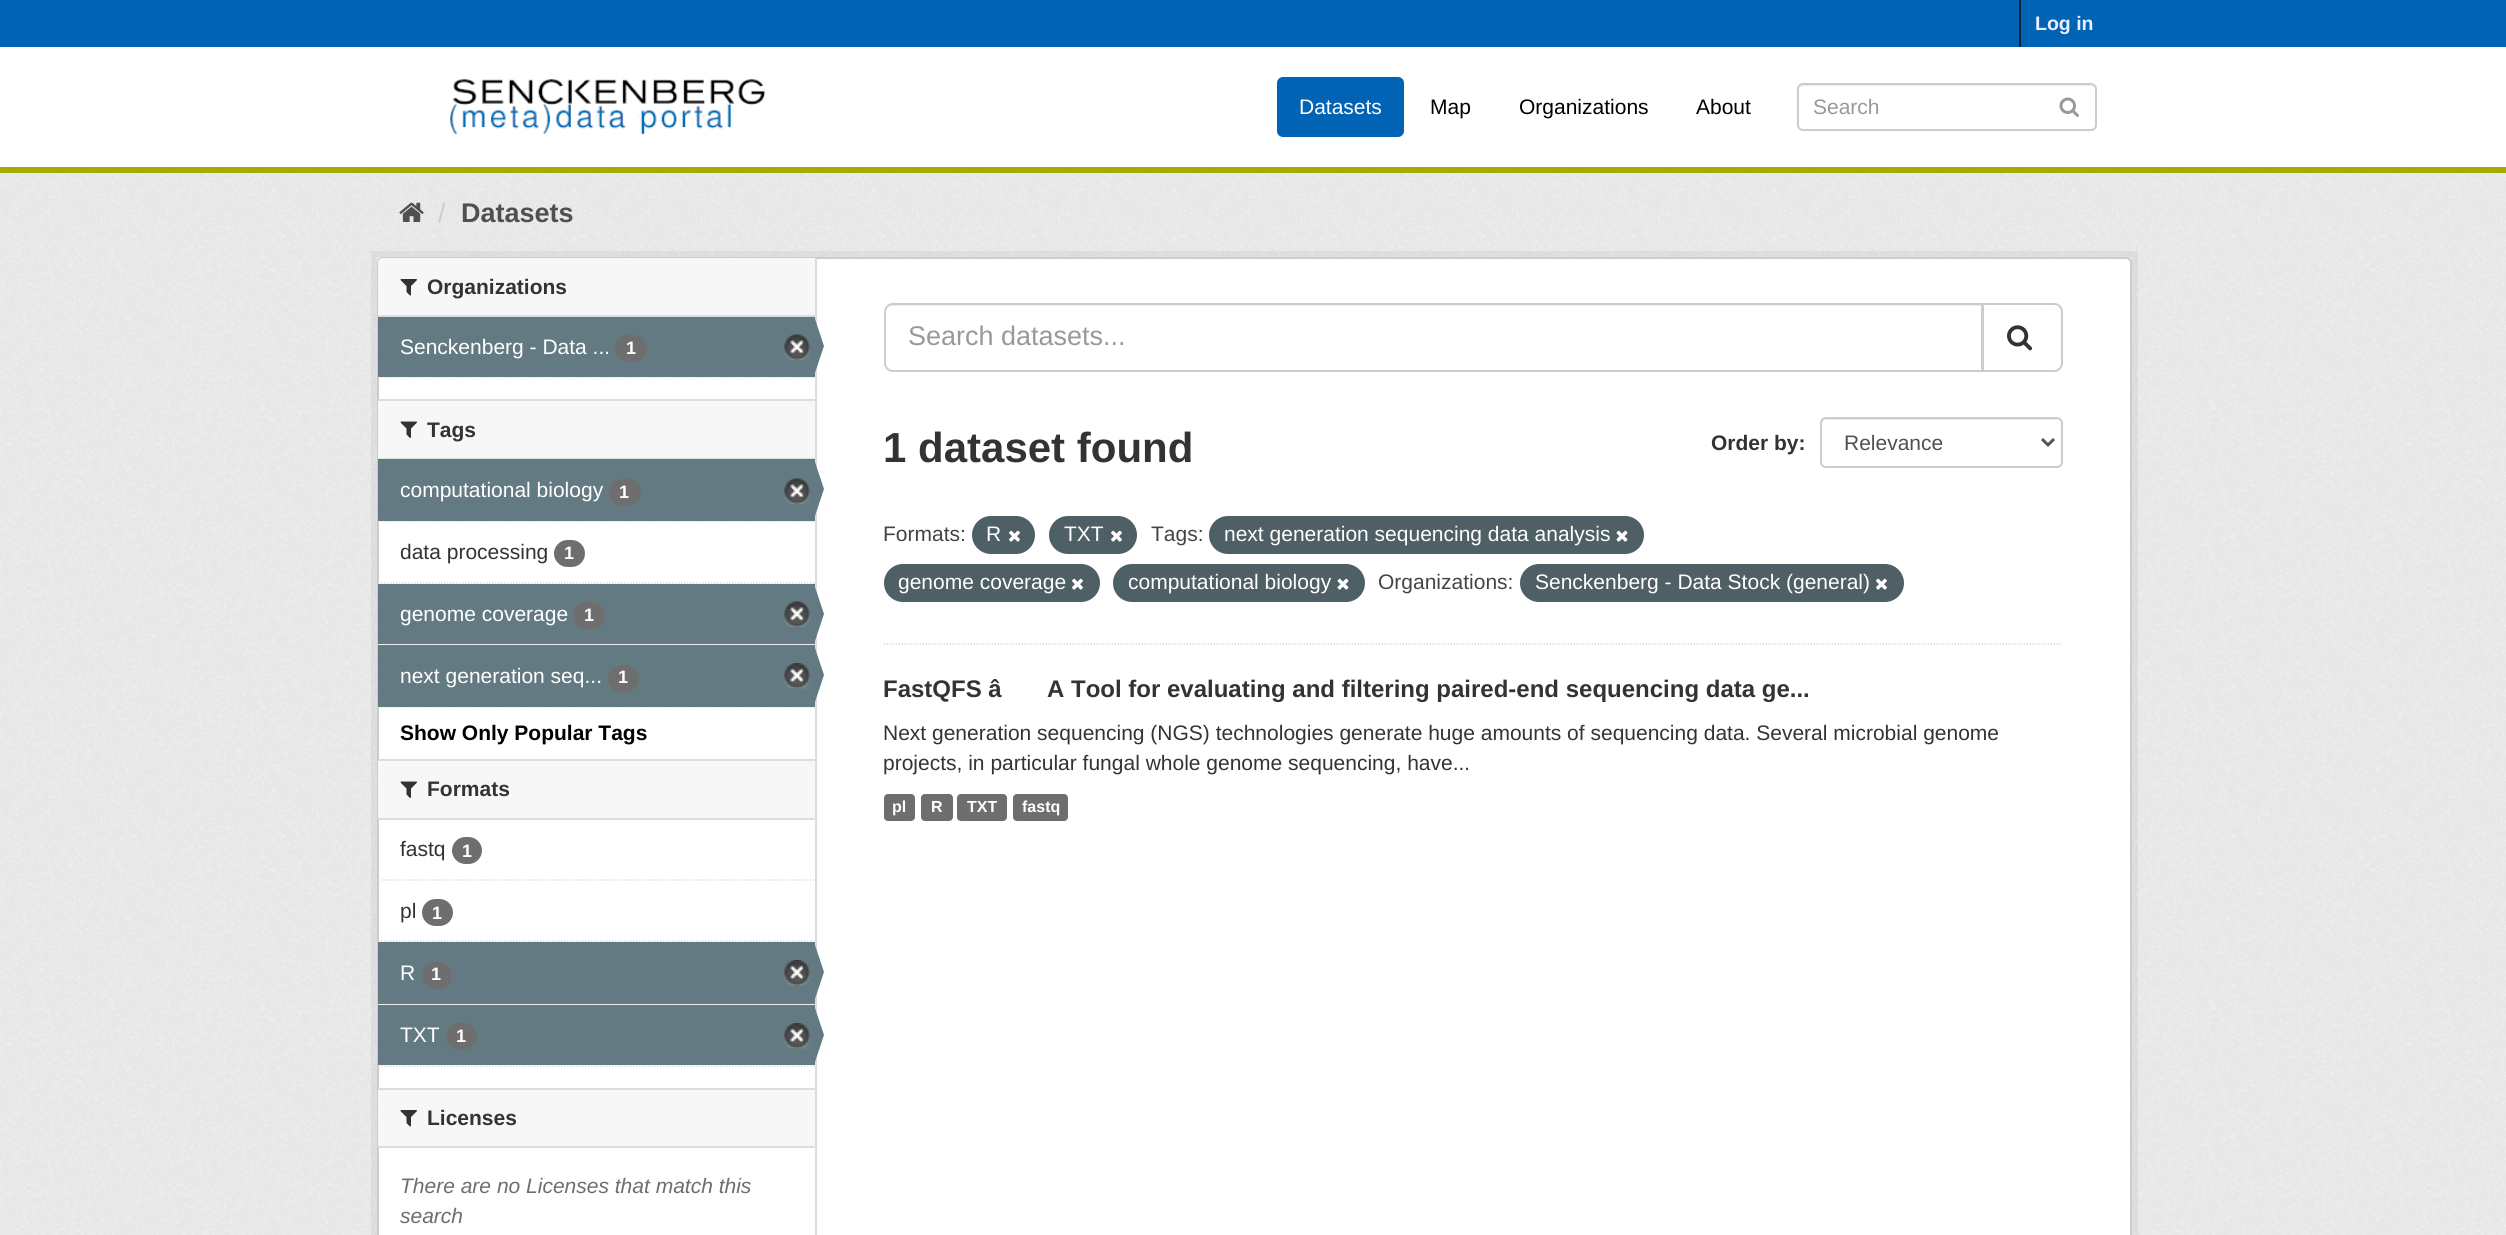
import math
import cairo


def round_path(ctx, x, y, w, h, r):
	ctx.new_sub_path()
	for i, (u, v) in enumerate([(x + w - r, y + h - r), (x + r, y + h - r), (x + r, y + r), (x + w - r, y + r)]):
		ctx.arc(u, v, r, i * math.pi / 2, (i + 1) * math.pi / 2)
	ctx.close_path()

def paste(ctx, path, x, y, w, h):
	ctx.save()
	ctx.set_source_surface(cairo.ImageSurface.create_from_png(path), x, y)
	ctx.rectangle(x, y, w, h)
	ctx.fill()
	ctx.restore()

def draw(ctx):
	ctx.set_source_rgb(1, 1, 1)
	ctx.paint()
	ctx.set_source_rgb(0, 0.388, 0.706)
	ctx.rectangle(0, 0, 2506, 47)
	ctx.fill()
	ctx.set_source_rgb(0, 0.137, 0.18)
	ctx.rectangle(2019, 0, 2, 47)
	ctx.fill()
	ctx.select_font_face('Liberation Sans', cairo.FONT_SLANT_NORMAL, cairo.FONT_WEIGHT_BOLD)
	ctx.set_font_size(19.5)
	ctx.set_source_rgb(0.933, 0.933, 1)
	ctx.move_to(2035, 30)
	ctx.show_text('Log in')
	ctx.set_source_rgb(0.643, 0.667, 0)
	ctx.rectangle(0, 167, 2506, 6)
	ctx.fill()
	paste(ctx, 'media/1.png', 450, 79, 316, 56)
	ctx.set_source_rgb(0, 0.388, 0.706)
	round_path(ctx, 1277, 77, 127, 60, 6)
	ctx.fill()
	ctx.select_font_face('Liberation Sans')
	ctx.set_font_size(21)
	ctx.set_source_rgb(1, 1, 1)
	ctx.move_to(1299, 114)
	ctx.show_text('Datasets')
	ctx.set_source_rgb(0, 0, 0)
	for x, y, s in [
		(1430, 114, 'Map'),
		(1519, 114, 'Organizations'),
		(1696, 114, 'About'),
	]:
		ctx.move_to(x, y)
		ctx.show_text(s)
	ctx.set_source_rgb(0.925, 0.925, 0.925)
	ctx.new_path()
	ctx.move_to(1803, 86)
	ctx.line_to(2091, 86)
	ctx.curve_to(2093, 86, 2096, 88, 2096, 90)
	ctx.line_to(2096, 89)
	ctx.curve_to(2096, 86, 2094, 84, 2091, 84)
	ctx.line_to(1804, 84)
	ctx.curve_to(1802, 84, 1800, 86, 1799, 88)
	ctx.curve_to(1800, 87, 1802, 86, 1803, 86)
	ctx.close_path()
	ctx.fill()
	round_path(ctx, 1798, 84, 298, 46, 5)
	ctx.set_source_rgb(0.8, 0.8, 0.8)
	ctx.stroke()
	ctx.set_source_rgb(0.6, 0.6, 0.6)
	ctx.move_to(1813, 114)
	ctx.show_text('Search')
	paste(ctx, 'media/2.png', 2059, 97, 20, 20)
	ctx.set_source_rgb(0.933, 0.933, 0.933)
	ctx.rectangle(0, 173, 2506, 1062)
	ctx.fill()
	paste(ctx, 'media/3.png', 0, 173, 2506, 1062)
	paste(ctx, 'media/4.png', 399, 202, 25, 20)
	ctx.set_font_size(27)
	ctx.set_source_rgb(0.8, 0.8, 0.8)
	ctx.move_to(438, 222)
	ctx.show_text('/')
	ctx.select_font_face('Liberation Sans', cairo.FONT_SLANT_NORMAL, cairo.FONT_WEIGHT_BOLD)
	ctx.set_source_rgb(0.314, 0.314, 0.314)
	ctx.move_to(461, 222)
	ctx.show_text('Datasets')
	ctx.rectangle(374, 254, 1761, 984)
	ctx.set_source_rgba(0, 0, 0, 0.05)
	ctx.set_line_width(6)
	ctx.stroke()
	ctx.set_source_rgb(1, 1, 1)
	round_path(ctx, 378, 258, 1753, 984, 5)
	ctx.fill_preserve()
	ctx.set_source_rgb(0.8, 0.8, 0.8)
	ctx.set_line_width(2)
	ctx.stroke()
	ctx.set_source_rgb(0.965, 0.965, 0.965)
	ctx.new_path()
	ctx.move_to(383, 258)
	ctx.line_to(815, 258)
	ctx.line_to(815, 317)
	ctx.line_to(378, 317)
	ctx.line_to(378, 263)
	ctx.curve_to(378, 260, 380, 258, 383, 258)
	ctx.close_path()
	ctx.fill()
	ctx.set_source_rgb(0.867, 0.867, 0.867)
	ctx.rectangle(378, 315, 437, 2)
	ctx.fill()
	paste(ctx, 'media/5.png', 400, 279, 17, 17)
	ctx.set_font_size(21)
	ctx.set_source_rgb(0.2, 0.2, 0.2)
	ctx.move_to(427, 294)
	ctx.show_text('Organizations')
	ctx.new_path()
	ctx.move_to(378, 377)
	ctx.line_to(814.5, 377)
	ctx.set_source_rgb(0.867, 0.867, 0.867)
	ctx.set_line_width(1.5)
	ctx.set_dash([1.5, 1.5])
	ctx.stroke()
	ctx.set_source_rgb(0.392, 0.478, 0.51)
	ctx.rectangle(378, 317, 437, 60)
	ctx.fill()
	ctx.select_font_face('Liberation Sans')
	ctx.set_source_rgb(1, 1, 1)
	ctx.move_to(400, 354)
	ctx.show_text('Senckenberg - Data ...')
	ctx.set_source_rgb(0.431, 0.431, 0.431)
	round_path(ctx, 615, 335, 32, 27, 13.5)
	ctx.fill()
	ctx.select_font_face('Liberation Sans', cairo.FONT_SLANT_NORMAL, cairo.FONT_WEIGHT_BOLD)
	ctx.set_font_size(18)
	ctx.set_source_rgb(1, 1, 1)
	ctx.move_to(626, 354)
	ctx.show_text('1')
	paste(ctx, 'media/6.png', 784, 334, 26, 26)
	ctx.set_source_rgb(0.867, 0.867, 0.867)
	ctx.rectangle(815, 258, 2, 977)
	ctx.fill()
	ctx.set_source_rgb(0.392, 0.478, 0.51)
	ctx.new_path()
	ctx.move_to(814, 376)
	ctx.line_to(814, 316)
	ctx.line_to(824, 346)
	ctx.close_path()
	ctx.fill()
	ctx.set_source_rgb(0.965, 0.965, 0.965)
	ctx.rectangle(378, 401, 437, 57)
	ctx.fill()
	ctx.set_source_rgb(0.867, 0.867, 0.867)
	ctx.rectangle(378, 399, 437, 2)
	ctx.rectangle(378, 458, 437, 1)
	ctx.fill()
	paste(ctx, 'media/7.png', 400, 421, 17, 17)
	ctx.set_font_size(21)
	ctx.set_source_rgb(0.2, 0.2, 0.2)
	ctx.move_to(427, 437)
	ctx.show_text('Tags')
	ctx.set_source_rgb(0.965, 0.965, 0.965)
	ctx.rectangle(378, 521, 437, 1)
	ctx.fill()
	ctx.new_path()
	ctx.move_to(378, 521)
	ctx.line_to(814.5, 521)
	ctx.set_source_rgb(0.867, 0.867, 0.867)
	ctx.stroke()
	ctx.set_source_rgb(0.392, 0.478, 0.51)
	ctx.rectangle(378, 459, 437, 62)
	ctx.fill()
	ctx.select_font_face('Liberation Sans')
	ctx.set_source_rgb(1, 1, 1)
	ctx.move_to(400, 497)
	ctx.show_text('computational biology')
	ctx.set_source_rgb(0.431, 0.431, 0.431)
	round_path(ctx, 609, 479, 32, 27, 13.5)
	ctx.fill()
	ctx.select_font_face('Liberation Sans', cairo.FONT_SLANT_NORMAL, cairo.FONT_WEIGHT_BOLD)
	ctx.set_font_size(18)
	ctx.set_source_rgb(1, 1, 1)
	ctx.move_to(619, 498)
	ctx.show_text('1')
	paste(ctx, 'media/6.png', 784, 478, 26, 26)
	ctx.set_source_rgb(0.392, 0.478, 0.51)
	ctx.new_path()
	ctx.move_to(814, 519)
	ctx.line_to(814, 459)
	ctx.line_to(824, 489)
	ctx.close_path()
	ctx.fill()
	ctx.new_path()
	ctx.move_to(378, 583)
	ctx.line_to(814.5, 583)
	ctx.set_source_rgb(0.867, 0.867, 0.867)
	ctx.stroke()
	ctx.select_font_face('Liberation Sans')
	ctx.set_font_size(21)
	ctx.set_source_rgb(0.2, 0.2, 0.2)
	ctx.move_to(400, 559)
	ctx.show_text('data processing')
	ctx.set_source_rgb(0.431, 0.431, 0.431)
	round_path(ctx, 554, 540, 31, 27, 13.5)
	ctx.fill()
	ctx.select_font_face('Liberation Sans', cairo.FONT_SLANT_NORMAL, cairo.FONT_WEIGHT_BOLD)
	ctx.set_font_size(18)
	ctx.set_source_rgb(1, 1, 1)
	ctx.move_to(564, 559)
	ctx.show_text('1')
	ctx.set_source_rgb(0.965, 0.965, 0.965)
	ctx.rectangle(378, 644, 437, 1)
	ctx.fill()
	ctx.new_path()
	ctx.move_to(378, 644)
	ctx.line_to(814.5, 644)
	ctx.set_source_rgb(0.867, 0.867, 0.867)
	ctx.stroke()
	ctx.set_source_rgb(0.392, 0.478, 0.51)
	ctx.rectangle(378, 584, 437, 60)
	ctx.fill()
	ctx.select_font_face('Liberation Sans')
	ctx.set_font_size(21)
	ctx.set_source_rgb(1, 1, 1)
	ctx.move_to(400, 621)
	ctx.show_text('genome coverage')
	ctx.set_source_rgb(0.431, 0.431, 0.431)
	round_path(ctx, 573, 602, 32, 27, 13.5)
	ctx.fill()
	ctx.select_font_face('Liberation Sans', cairo.FONT_SLANT_NORMAL, cairo.FONT_WEIGHT_BOLD)
	ctx.set_font_size(18)
	ctx.set_source_rgb(1, 1, 1)
	ctx.move_to(584, 621)
	ctx.show_text('1')
	paste(ctx, 'media/6.png', 784, 601, 26, 26)
	ctx.set_source_rgb(0.392, 0.478, 0.51)
	ctx.new_path()
	ctx.move_to(814, 644)
	ctx.line_to(814, 584)
	ctx.line_to(824, 614)
	ctx.close_path()
	ctx.fill()
	ctx.new_path()
	ctx.move_to(378, 707)
	ctx.line_to(814.5, 707)
	ctx.set_source_rgb(0.867, 0.867, 0.867)
	ctx.stroke()
	ctx.set_source_rgb(0.392, 0.478, 0.51)
	ctx.rectangle(378, 645, 437, 62)
	ctx.fill()
	ctx.select_font_face('Liberation Sans')
	ctx.set_font_size(21)
	ctx.set_source_rgb(1, 1, 1)
	ctx.move_to(400, 683)
	ctx.show_text('next generation seq...')
	ctx.set_source_rgb(0.431, 0.431, 0.431)
	round_path(ctx, 608, 665, 31, 27, 13.5)
	ctx.fill()
	ctx.select_font_face('Liberation Sans', cairo.FONT_SLANT_NORMAL, cairo.FONT_WEIGHT_BOLD)
	ctx.set_font_size(18)
	ctx.set_source_rgb(1, 1, 1)
	ctx.move_to(618, 683)
	ctx.show_text('1')
	paste(ctx, 'media/8.png', 784, 663, 26, 26)
	ctx.set_source_rgb(0.392, 0.478, 0.51)
	ctx.new_path()
	ctx.move_to(814, 705)
	ctx.line_to(814, 645)
	ctx.line_to(824, 675)
	ctx.close_path()
	ctx.fill()
	ctx.set_font_size(21)
	ctx.set_source_rgb(0, 0, 0)
	ctx.move_to(400, 740)
	ctx.show_text('Show Only Popular Tags')
	ctx.set_source_rgb(0.965, 0.965, 0.965)
	ctx.rectangle(378, 761, 437, 57)
	ctx.fill()
	ctx.set_source_rgb(0.867, 0.867, 0.867)
	ctx.rectangle(378, 759, 437, 2)
	ctx.rectangle(378, 818, 437, 2)
	ctx.fill()
	paste(ctx, 'media/7.png', 400, 781, 17, 17)
	ctx.set_source_rgb(0.2, 0.2, 0.2)
	ctx.move_to(427, 796)
	ctx.show_text('Formats')
	ctx.new_path()
	ctx.move_to(378, 880)
	ctx.line_to(814.5, 880)
	ctx.set_source_rgb(0.867, 0.867, 0.867)
	ctx.stroke()
	ctx.select_font_face('Liberation Sans')
	ctx.set_source_rgb(0.2, 0.2, 0.2)
	ctx.move_to(400, 856)
	ctx.show_text('fastq')
	ctx.set_source_rgb(0.431, 0.431, 0.431)
	round_path(ctx, 452, 837, 30, 27, 13.5)
	ctx.fill()
	ctx.select_font_face('Liberation Sans', cairo.FONT_SLANT_NORMAL, cairo.FONT_WEIGHT_BOLD)
	ctx.set_font_size(18)
	ctx.set_source_rgb(1, 1, 1)
	ctx.move_to(462, 857)
	ctx.show_text('1')
	ctx.new_path()
	ctx.move_to(378, 941)
	ctx.line_to(814.5, 941)
	ctx.set_source_rgb(0.867, 0.867, 0.867)
	ctx.stroke()
	ctx.select_font_face('Liberation Sans')
	ctx.set_font_size(21)
	ctx.set_source_rgb(0.2, 0.2, 0.2)
	ctx.move_to(400, 918)
	ctx.show_text('pl')
	ctx.set_source_rgb(0.431, 0.431, 0.431)
	round_path(ctx, 422, 899, 31, 27, 13.5)
	ctx.fill()
	ctx.select_font_face('Liberation Sans', cairo.FONT_SLANT_NORMAL, cairo.FONT_WEIGHT_BOLD)
	ctx.set_font_size(18)
	ctx.set_source_rgb(1, 1, 1)
	ctx.move_to(432, 919)
	ctx.show_text('1')
	ctx.set_source_rgb(0.965, 0.965, 0.965)
	ctx.rectangle(378, 1004, 437, 1)
	ctx.fill()
	ctx.new_path()
	ctx.move_to(378, 1004)
	ctx.line_to(814.5, 1004)
	ctx.set_source_rgb(0.867, 0.867, 0.867)
	ctx.stroke()
	ctx.set_source_rgb(0.392, 0.478, 0.51)
	ctx.rectangle(378, 942, 437, 62)
	ctx.fill()
	ctx.select_font_face('Liberation Sans')
	ctx.set_font_size(21)
	ctx.set_source_rgb(1, 1, 1)
	ctx.move_to(400, 980)
	ctx.show_text('R')
	ctx.set_source_rgb(0.431, 0.431, 0.431)
	round_path(ctx, 422, 962, 30, 27, 13.5)
	ctx.fill()
	ctx.select_font_face('Liberation Sans', cairo.FONT_SLANT_NORMAL, cairo.FONT_WEIGHT_BOLD)
	ctx.set_font_size(18)
	ctx.set_source_rgb(1, 1, 1)
	ctx.move_to(431, 980)
	ctx.show_text('1')
	paste(ctx, 'media/8.png', 784, 960, 26, 26)
	ctx.set_source_rgb(0.392, 0.478, 0.51)
	ctx.new_path()
	ctx.move_to(814, 1002)
	ctx.line_to(814, 942)
	ctx.line_to(824, 972)
	ctx.close_path()
	ctx.fill()
	ctx.rectangle(378, 1005, 437, 60)
	ctx.fill()
	ctx.select_font_face('Liberation Sans')
	ctx.set_font_size(21)
	ctx.set_source_rgb(1, 1, 1)
	ctx.move_to(400, 1042)
	ctx.show_text('TXT')
	ctx.set_source_rgb(0.431, 0.431, 0.431)
	round_path(ctx, 446, 1023, 31, 27, 13.5)
	ctx.fill()
	ctx.select_font_face('Liberation Sans', cairo.FONT_SLANT_NORMAL, cairo.FONT_WEIGHT_BOLD)
	ctx.set_font_size(18)
	ctx.set_source_rgb(1, 1, 1)
	ctx.move_to(456, 1042)
	ctx.show_text('1')
	paste(ctx, 'media/8.png', 784, 1023, 26, 26)
	ctx.set_source_rgb(0.392, 0.478, 0.51)
	ctx.new_path()
	ctx.move_to(814, 1065)
	ctx.line_to(814, 1005)
	ctx.line_to(824, 1035)
	ctx.close_path()
	ctx.fill()
	ctx.new_path()
	ctx.move_to(378, 1066)
	ctx.line_to(814.5, 1066)
	ctx.set_source_rgb(0.867, 0.867, 0.867)
	ctx.stroke()
	ctx.set_source_rgb(0.965, 0.965, 0.965)
	ctx.rectangle(378, 1090, 437, 56)
	ctx.fill()
	ctx.set_source_rgb(0.867, 0.867, 0.867)
	ctx.rectangle(378, 1088, 437, 2)
	ctx.rectangle(378, 1146, 437, 2)
	ctx.fill()
	paste(ctx, 'media/5.png', 400, 1110, 17, 17)
	ctx.set_font_size(21)
	ctx.set_source_rgb(0.2, 0.2, 0.2)
	ctx.move_to(427, 1125)
	ctx.show_text('Licenses')
	ctx.select_font_face('Liberation Sans', cairo.FONT_SLANT_ITALIC)
	ctx.set_source_rgb(0.431, 0.431, 0.431)
	ctx.move_to(400, 1193)
	ctx.show_text('There are no Licenses that match this')
	ctx.move_to(400, 1223)
	ctx.show_text('search')
	ctx.new_path()
	ctx.move_to(883.5, 644)
	ctx.line_to(2062.5, 644)
	ctx.set_source_rgb(0.867, 0.867, 0.867)
	ctx.stroke()
	ctx.set_source_rgb(0.925, 0.925, 0.925)
	ctx.new_path()
	ctx.move_to(892, 306)
	ctx.line_to(1982, 306)
	ctx.line_to(1982, 305)
	ctx.line_to(893, 305)
	ctx.curve_to(889, 305, 885, 309, 885, 313)
	ctx.line_to(885, 314)
	ctx.curve_to(885, 309, 888, 306, 892, 306)
	ctx.close_path()
	ctx.fill()
	ctx.new_path()
	ctx.move_to(893, 304)
	ctx.line_to(1982, 304)
	ctx.line_to(1982, 371)
	ctx.line_to(893, 371)
	ctx.curve_to(888.5, 371, 885, 367.5, 885, 363)
	ctx.line_to(885, 312)
	ctx.curve_to(885, 307.5, 888.5, 304, 893, 304)
	ctx.close_path()
	ctx.set_source_rgb(0.8, 0.8, 0.8)
	ctx.set_line_width(2)
	ctx.set_dash([])
	ctx.stroke()
	ctx.select_font_face('Liberation Sans')
	ctx.set_font_size(27)
	ctx.set_source_rgb(0.6, 0.6, 0.6)
	ctx.move_to(908, 345)
	ctx.show_text('Search datasets...')
	ctx.set_source_rgb(1, 1, 1)
	ctx.new_path()
	ctx.move_to(1983, 304)
	ctx.line_to(2054, 304)
	ctx.curve_to(2058.5, 304, 2062, 307.5, 2062, 312)
	ctx.line_to(2062, 363)
	ctx.curve_to(2062, 367.5, 2058.5, 371, 2054, 371)
	ctx.line_to(1983, 371)
	ctx.close_path()
	ctx.fill_preserve()
	ctx.set_source_rgb(0.8, 0.8, 0.8)
	ctx.stroke()
	paste(ctx, 'media/9.png', 2007, 325, 26, 26)
	ctx.select_font_face('Liberation Sans', cairo.FONT_SLANT_NORMAL, cairo.FONT_WEIGHT_BOLD)
	ctx.set_font_size(42)
	ctx.set_source_rgb(0.2, 0.2, 0.2)
	ctx.move_to(883, 462)
	ctx.show_text('1 dataset found')
	ctx.set_font_size(21)
	ctx.move_to(1711, 450)
	ctx.show_text('Order by:')
	ctx.set_source_rgb(0.925, 0.925, 0.925)
	ctx.new_path()
	ctx.move_to(1826, 420)
	ctx.line_to(2056, 420)
	ctx.curve_to(2059, 420, 2061, 422, 2061, 424)
	ctx.curve_to(2061, 421, 2059, 419, 2056, 419)
	ctx.line_to(1826, 419)
	ctx.curve_to(1823, 419, 1821, 421, 1821, 424)
	ctx.curve_to(1821, 422, 1823, 420, 1826, 420)
	ctx.close_path()
	ctx.fill()
	round_path(ctx, 1821, 418, 241, 49, 5)
	ctx.set_source_rgb(0.8, 0.8, 0.8)
	ctx.stroke()
	ctx.new_path()
	ctx.move_to(2042, 439)
	ctx.line_to(2048, 445)
	ctx.line_to(2054, 439)
	ctx.set_source_rgb(0.333, 0.333, 0.333)
	ctx.set_line_width(3)
	ctx.stroke()
	ctx.select_font_face('Liberation Sans')
	ctx.set_source_rgb(0.314, 0.314, 0.314)
	ctx.move_to(1844, 450)
	ctx.show_text('Relevance')
	ctx.set_source_rgb(0.267, 0.267, 0.267)
	ctx.move_to(883, 541)
	ctx.show_text('Formats:')
	ctx.set_source_rgb(0.306, 0.373, 0.396)
	round_path(ctx, 972, 516, 63, 38, 19)
	ctx.fill()
	ctx.set_source_rgb(1, 1, 1)
	ctx.move_to(986, 541)
	ctx.show_text('R')
	paste(ctx, 'media/10.png', 1009, 530, 11, 12)
	ctx.set_source_rgb(0.306, 0.373, 0.396)
	round_path(ctx, 1049, 516, 88, 38, 19)
	ctx.fill()
	ctx.set_source_rgb(1, 1, 1)
	ctx.move_to(1064, 541)
	ctx.show_text('TXT')
	paste(ctx, 'media/10.png', 1111, 530, 11, 12)
	ctx.set_source_rgb(0.267, 0.267, 0.267)
	ctx.move_to(1151, 541)
	ctx.show_text('Tags:')
	ctx.set_source_rgb(0.306, 0.373, 0.396)
	round_path(ctx, 1209, 516, 435, 38, 19)
	ctx.fill()
	ctx.set_source_rgb(1, 1, 1)
	ctx.move_to(1224, 541)
	ctx.show_text('next generation sequencing data analysis')
	paste(ctx, 'media/11.png', 1616, 530, 12, 12)
	ctx.set_source_rgb(0.306, 0.373, 0.396)
	round_path(ctx, 884, 564, 216, 38, 19)
	ctx.fill()
	ctx.set_source_rgb(1, 1, 1)
	ctx.move_to(898, 589)
	ctx.show_text('genome coverage')
	paste(ctx, 'media/10.png', 1072, 578, 11, 12)
	ctx.set_source_rgb(0.306, 0.373, 0.396)
	round_path(ctx, 1113, 564, 252, 38, 19)
	ctx.fill()
	ctx.set_source_rgb(1, 1, 1)
	ctx.move_to(1128, 589)
	ctx.show_text('computational biology')
	paste(ctx, 'media/11.png', 1337, 578, 12, 12)
	ctx.set_source_rgb(0.267, 0.267, 0.267)
	ctx.move_to(1378, 589)
	ctx.show_text('Organizations:')
	ctx.set_source_rgb(0.306, 0.373, 0.396)
	round_path(ctx, 1520, 564, 384, 38, 19)
	ctx.fill()
	ctx.set_source_rgb(1, 1, 1)
	ctx.move_to(1535, 589)
	ctx.show_text('Senckenberg - Data Stock (general)')
	paste(ctx, 'media/10.png', 1876, 578, 11, 12)
	ctx.select_font_face('Liberation Sans', cairo.FONT_SLANT_NORMAL, cairo.FONT_WEIGHT_BOLD)
	ctx.set_font_size(24)
	ctx.set_source_rgb(0.2, 0.2, 0.2)
	ctx.move_to(883, 697)
	ctx.show_text('FastQFS â')
	ctx.move_to(1047, 697)
	ctx.show_text('A Tool for evaluating and filtering paired-end sequencing data ge...')
	ctx.select_font_face('Liberation Sans')
	ctx.set_font_size(21)
	ctx.move_to(883, 740)
	ctx.show_text('Next generation sequencing (NGS) technologies generate huge amounts of sequencing data. Several microbial genome')
	ctx.move_to(883, 770)
	ctx.show_text('projects, in particular fungal whole genome sequencing, have...')
	ctx.set_source_rgb(0.431, 0.431, 0.431)
	round_path(ctx, 884, 794, 31, 27, 4)
	ctx.fill()
	ctx.select_font_face('Liberation Sans', cairo.FONT_SLANT_NORMAL, cairo.FONT_WEIGHT_BOLD)
	ctx.set_font_size(16)
	ctx.set_source_rgb(1, 1, 1)
	ctx.move_to(892, 812)
	ctx.show_text('pl')
	ctx.set_source_rgb(0.431, 0.431, 0.431)
	round_path(ctx, 921, 794, 32, 27, 4)
	ctx.fill()
	ctx.set_source_rgb(1, 1, 1)
	ctx.move_to(931, 812)
	ctx.show_text('R')
	ctx.set_source_rgb(0.431, 0.431, 0.431)
	round_path(ctx, 957, 794, 50, 27, 4)
	ctx.fill()
	ctx.set_source_rgb(1, 1, 1)
	ctx.move_to(967, 812)
	ctx.show_text('TXT')
	ctx.set_source_rgb(0.431, 0.431, 0.431)
	round_path(ctx, 1013, 794, 55, 27, 4)
	ctx.fill()
	ctx.set_source_rgb(1, 1, 1)
	ctx.move_to(1022, 812)
	ctx.show_text('fastq')


surface = cairo.ImageSurface(cairo.FORMAT_RGB24, 2506, 1235)
ctx = cairo.Context(surface)
options = cairo.FontOptions()
options.set_hint_metrics(cairo.HINT_METRICS_OFF)
options.set_hint_style(cairo.HINT_STYLE_NONE)
ctx.set_font_options(options)
ctx.set_miter_limit(4)
draw(ctx)
surface.write_to_png('image.png')
